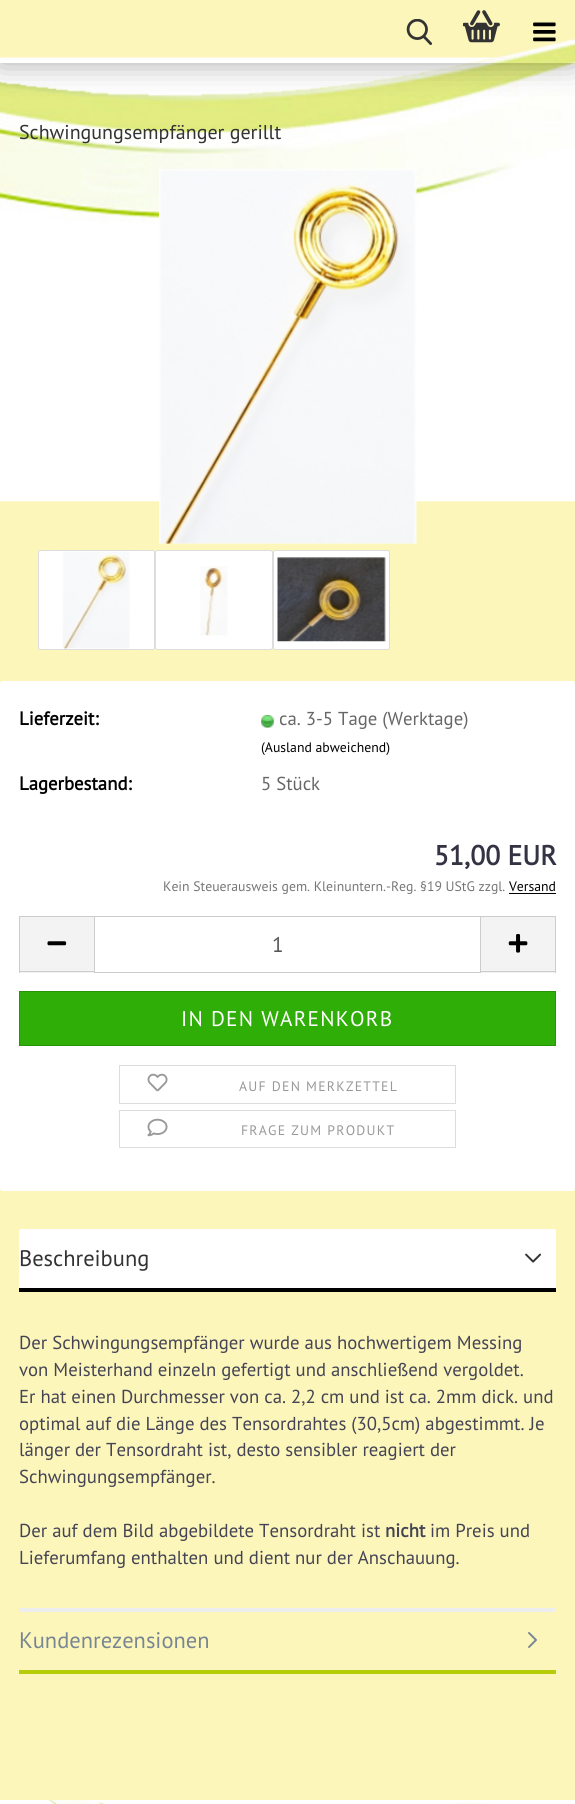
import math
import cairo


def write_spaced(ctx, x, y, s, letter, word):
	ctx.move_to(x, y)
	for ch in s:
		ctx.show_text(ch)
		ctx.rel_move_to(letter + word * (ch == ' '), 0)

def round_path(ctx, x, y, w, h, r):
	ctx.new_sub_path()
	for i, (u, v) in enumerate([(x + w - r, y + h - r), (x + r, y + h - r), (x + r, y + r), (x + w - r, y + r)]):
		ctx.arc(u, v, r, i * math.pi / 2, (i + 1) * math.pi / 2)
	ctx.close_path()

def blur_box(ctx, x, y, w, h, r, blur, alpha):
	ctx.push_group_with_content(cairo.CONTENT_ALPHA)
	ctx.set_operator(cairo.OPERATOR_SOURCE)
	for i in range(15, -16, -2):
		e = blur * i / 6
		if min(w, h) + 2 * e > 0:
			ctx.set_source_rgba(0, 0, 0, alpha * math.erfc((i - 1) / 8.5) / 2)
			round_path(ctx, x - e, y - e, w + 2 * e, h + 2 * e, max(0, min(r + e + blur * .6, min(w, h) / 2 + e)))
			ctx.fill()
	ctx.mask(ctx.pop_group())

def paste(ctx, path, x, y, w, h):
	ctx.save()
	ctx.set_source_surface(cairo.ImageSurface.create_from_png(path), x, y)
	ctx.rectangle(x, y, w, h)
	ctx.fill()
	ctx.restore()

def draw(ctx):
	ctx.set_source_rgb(1, 1, 1)
	ctx.paint()
	paste(ctx, 'media/1.png', 0, 0, 575, 1800)
	paste(ctx, 'media/2.png', 0, 38, 575, 186)
	ctx.save()
	ctx.set_fill_rule(cairo.FILL_RULE_EVEN_ODD)
	ctx.new_path()
	ctx.move_to(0, 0)
	ctx.line_to(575, 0)
	ctx.line_to(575, 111)
	ctx.line_to(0, 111)
	ctx.close_path()
	ctx.move_to(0, 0)
	ctx.line_to(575, 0)
	ctx.line_to(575, 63)
	ctx.line_to(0, 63)
	ctx.close_path()
	ctx.clip()
	ctx.set_source_rgb(0, 0, 0)
	blur_box(ctx, 0, 0, 575, 63, 0, 15.5, 0.35)
	ctx.restore()
	paste(ctx, 'media/3.png', 406, 19, 26, 26)
	paste(ctx, 'media/4.png', 463, 10, 37, 33)
	paste(ctx, 'media/5.png', 533, 22, 23, 20)
	ctx.select_font_face('PT Sans')
	ctx.set_font_size(20)
	ctx.set_source_rgb(0.2, 0.2, 0.2)
	ctx.move_to(19, 139)
	ctx.show_text('Schwingungsempfänger gerillt')
	paste(ctx, 'media/6.png', 159, 169, 258, 375)
	ctx.set_source_rgb(1, 1, 1)
	round_path(ctx, 38.5, 550.5, 116, 99, 2)
	ctx.fill_preserve()
	ctx.set_source_rgb(0.867, 0.867, 0.867)
	ctx.set_line_width(1)
	ctx.stroke()
	paste(ctx, 'media/7.png', 62, 551, 68, 99)
	ctx.set_source_rgb(1, 1, 1)
	round_path(ctx, 155.5, 550.5, 117, 99, 2)
	ctx.fill_preserve()
	ctx.set_source_rgb(0.867, 0.867, 0.867)
	ctx.stroke()
	paste(ctx, 'media/8.png', 200, 566, 28, 70)
	ctx.set_source_rgb(1, 1, 1)
	round_path(ctx, 273.5, 550.5, 116, 99, 2)
	ctx.fill_preserve()
	ctx.set_source_rgb(0.867, 0.867, 0.867)
	ctx.stroke()
	paste(ctx, 'media/9.png', 277, 557, 109, 85)
	ctx.set_source_rgb(1, 1, 1)
	round_path(ctx, 0, 681, 575, 510, 2.5)
	ctx.fill()
	ctx.select_font_face('PT Sans', cairo.FONT_SLANT_NORMAL, cairo.FONT_WEIGHT_BOLD)
	ctx.set_font_size(18.75)
	ctx.set_source_rgb(0, 0, 0)
	ctx.move_to(19, 725)
	ctx.show_text('Lieferzeit:')
	paste(ctx, 'media/10.png', 261, 715, 13, 13)
	ctx.select_font_face('PT Sans')
	ctx.set_source_rgb(0.4, 0.4, 0.4)
	ctx.move_to(279, 725)
	ctx.show_text('ca. 3-5 Tage (Werktage)')
	ctx.set_font_size(13.75)
	ctx.set_source_rgb(0, 0, 0)
	ctx.move_to(261, 752)
	ctx.show_text('(Ausland abweichend)')
	ctx.select_font_face('PT Sans', cairo.FONT_SLANT_NORMAL, cairo.FONT_WEIGHT_BOLD)
	ctx.set_font_size(18.75)
	ctx.move_to(19, 790)
	ctx.show_text('Lagerbestand:')
	ctx.select_font_face('PT Sans')
	ctx.set_source_rgb(0.4, 0.4, 0.4)
	ctx.move_to(261, 790)
	ctx.show_text('5 Stück')
	ctx.select_font_face('PT Sans', cairo.FONT_SLANT_NORMAL, cairo.FONT_WEIGHT_BOLD)
	ctx.set_font_size(27.5)
	ctx.set_source_rgb(0.2, 0.2, 0.267)
	ctx.move_to(434, 865)
	ctx.show_text('51,00 EUR')
	ctx.select_font_face('PT Sans')
	ctx.set_font_size(13.75)
	ctx.set_source_rgb(0.467, 0.467, 0.467)
	ctx.move_to(163, 891)
	ctx.show_text('Kein Steuerausweis gem. Kleinuntern.-Reg. §19 UStG zzgl.')
	ctx.set_source_rgb(0, 0, 0)
	ctx.move_to(509, 891)
	ctx.show_text('Versand')
	ctx.rectangle(509, 893, 47, 1)
	ctx.fill()
	ctx.set_source_rgb(0.953, 0.953, 0.953)
	ctx.rectangle(20, 917, 74, 56)
	ctx.fill()
	ctx.set_source_rgb(0.8, 0.8, 0.8)
	ctx.rectangle(19, 916, 75, 1)
	ctx.rectangle(19, 971, 75, 1)
	ctx.rectangle(19, 916, 1, 57)
	ctx.fill()
	paste(ctx, 'media/11.png', 47, 941, 20, 5)
	ctx.rectangle(94.5, 916.5, 386, 56)
	ctx.stroke()
	ctx.set_font_size(21.25)
	ctx.set_source_rgb(0.333, 0.333, 0.333)
	ctx.move_to(272, 952)
	ctx.show_text('1')
	ctx.set_source_rgb(0.953, 0.953, 0.953)
	ctx.rectangle(481, 917, 74, 56)
	ctx.fill()
	ctx.set_source_rgb(0.8, 0.8, 0.8)
	ctx.rectangle(481, 916, 75, 1)
	ctx.rectangle(555, 916, 1, 57)
	ctx.rectangle(481, 971, 75, 1)
	ctx.fill()
	paste(ctx, 'media/12.png', 508, 934, 20, 19)
	ctx.set_source_rgb(0.18, 0.682, 0.024)
	ctx.rectangle(19.5, 991.5, 536, 54)
	ctx.fill_preserve()
	ctx.set_source_rgb(0.153, 0.584, 0.02)
	ctx.stroke()
	ctx.set_source_rgb(1, 1, 1)
	write_spaced(ctx, 181, 1026, 'IN DEN WARENKORB', 1.25, 0)
	ctx.rectangle(119.5, 1065.5, 336, 38)
	ctx.set_source_rgb(0.867, 0.867, 0.867)
	ctx.stroke()
	paste(ctx, 'media/13.png', 147, 1073, 21, 19)
	ctx.set_font_size(13.75)
	ctx.set_source_rgb(0.6, 0.6, 0.6)
	write_spaced(ctx, 239, 1091, 'AUF DEN MERKZETTEL', 1.25, 0)
	ctx.rectangle(119.5, 1110.5, 336, 37)
	ctx.set_source_rgb(0.867, 0.867, 0.867)
	ctx.stroke()
	paste(ctx, 'media/14.png', 147, 1118, 21, 19)
	ctx.set_source_rgb(0.6, 0.6, 0.6)
	write_spaced(ctx, 241, 1135, 'FRAGE ZUM PRODUKT', 1.25, 0)
	ctx.set_source_rgb(1, 1, 1)
	ctx.new_path()
	ctx.move_to(21.5, 1229)
	ctx.line_to(553.5, 1229)
	ctx.curve_to(555, 1229, 556, 1230, 556, 1231.5)
	ctx.line_to(556, 1291)
	ctx.line_to(19, 1291)
	ctx.line_to(19, 1231.5)
	ctx.curve_to(19, 1230, 20, 1229, 21.5, 1229)
	ctx.close_path()
	ctx.fill()
	ctx.set_source_rgb(0, 0, 0)
	ctx.rectangle(19, 1288, 537, 4)
	ctx.fill()
	ctx.set_font_size(22.5)
	ctx.set_source_rgb(0.2, 0.2, 0.2)
	ctx.move_to(19, 1266)
	ctx.show_text('Beschreibung')
	paste(ctx, 'media/15.png', 525, 1253, 17, 10)
	ctx.set_source_rgb(0.933, 0.933, 0.933)
	ctx.rectangle(19, 1608, 537, 4)
	ctx.fill()
	ctx.set_font_size(18.75)
	ctx.set_source_rgb(0.267, 0.267, 0.333)
	for x, y, s in [
		(19, 1349, 'Der Schwingungsempfänger wurde aus hochwertigem Messing'),
		(19, 1376, 'von Meisterhand einzeln gefertigt und anschließend vergoldet.'),
		(19, 1403, 'Er hat einen Durchmesser von ca. 2,2 cm und ist ca. 2mm dick. und'),
		(19, 1430, 'optimal auf die Länge des Tensordrahtes (30,5cm) abgestimmt. Je'),
		(19, 1456, 'länger der Tensordraht ist, desto sensibler reagiert der'),
		(19, 1483, 'Schwingungsempfänger.'),
		(19, 1537, 'Der auf dem Bild abgebildete Tensordraht ist'),
	]:
		ctx.move_to(x, y)
		ctx.show_text(s)
	ctx.select_font_face('PT Sans', cairo.FONT_SLANT_NORMAL, cairo.FONT_WEIGHT_BOLD)
	ctx.move_to(385, 1537)
	ctx.show_text('nicht')
	ctx.select_font_face('PT Sans')
	ctx.move_to(430, 1537)
	ctx.show_text('im Preis und')
	ctx.move_to(19, 1564)
	ctx.show_text('Lieferumfang enthalten und dient nur der Anschauung.')
	ctx.set_source_rgb(0.71, 0.804, 0.035)
	ctx.rectangle(19, 1670, 537, 4)
	ctx.fill()
	ctx.set_font_size(22.5)
	ctx.set_source_rgb(0.471, 0.525, 0.58)
	ctx.move_to(19, 1648)
	ctx.show_text('Kundenrezensionen')
	paste(ctx, 'media/16.png', 528, 1632, 9, 16)
	paste(ctx, 'media/17.png', 48, 1800, 440, 4)


surface = cairo.ImageSurface(cairo.FORMAT_RGB24, 575, 1804)
ctx = cairo.Context(surface)
options = cairo.FontOptions()
options.set_hint_metrics(cairo.HINT_METRICS_OFF)
options.set_hint_style(cairo.HINT_STYLE_NONE)
ctx.set_font_options(options)
ctx.set_miter_limit(4)
draw(ctx)
surface.write_to_png('image.png')
